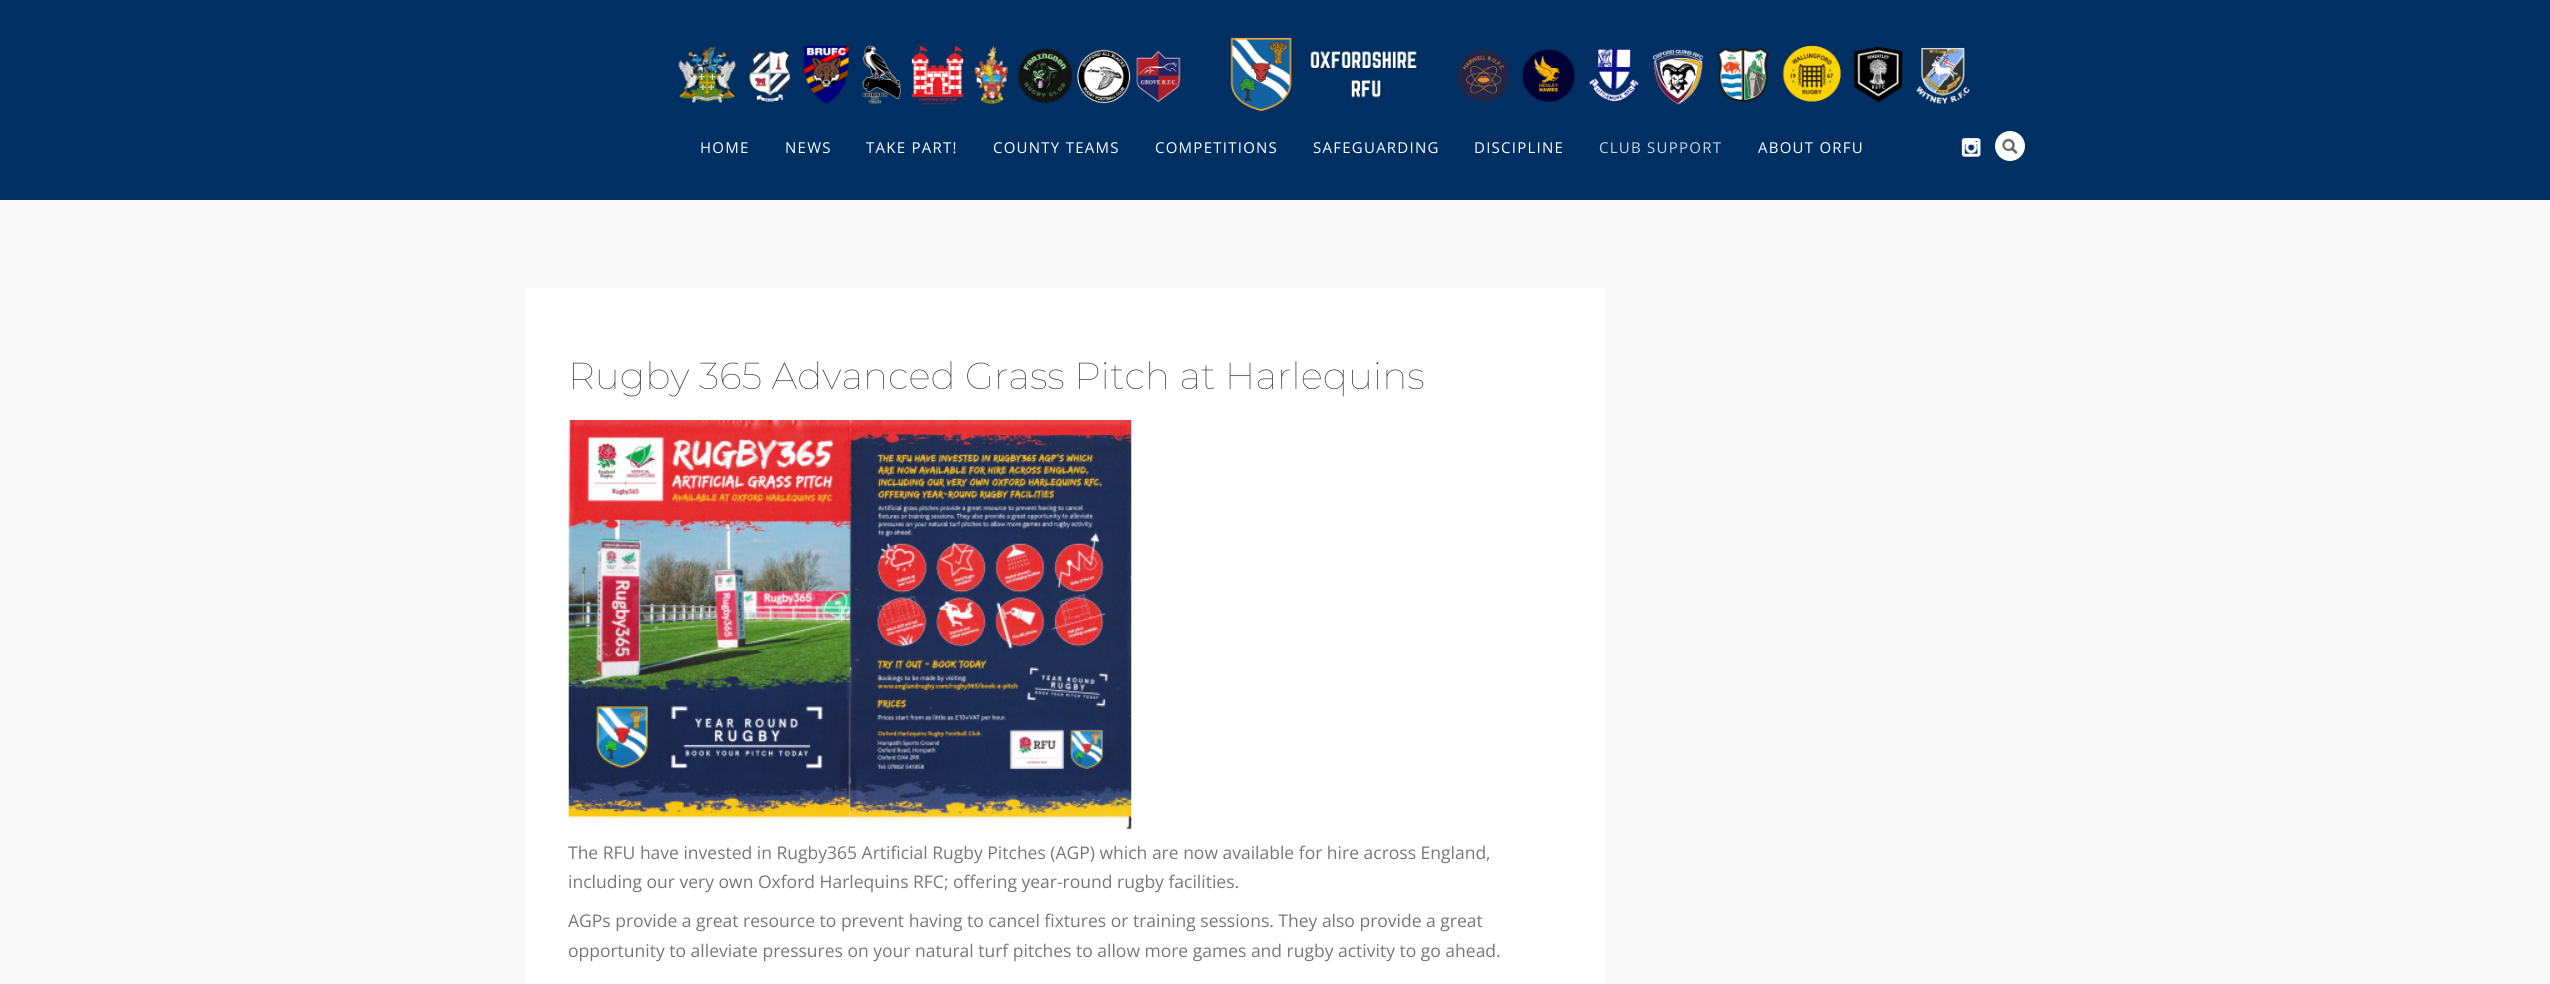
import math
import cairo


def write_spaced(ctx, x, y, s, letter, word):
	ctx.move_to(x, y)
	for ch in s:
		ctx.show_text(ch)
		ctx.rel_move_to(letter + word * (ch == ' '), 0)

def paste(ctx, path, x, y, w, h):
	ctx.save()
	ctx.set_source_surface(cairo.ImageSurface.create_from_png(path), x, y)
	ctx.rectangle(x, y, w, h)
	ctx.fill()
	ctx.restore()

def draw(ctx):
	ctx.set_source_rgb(0.969, 0.969, 0.969)
	ctx.paint()
	ctx.set_source_rgb(0, 0.188, 0.388)
	ctx.rectangle(0, 0, 2550, 200)
	ctx.fill()
	paste(ctx, 'media/1.png', 678, 37, 1292, 74)
	ctx.select_font_face('Open Sans')
	ctx.set_font_size(15)
	ctx.set_source_rgb(1, 1, 1)
	for x, y, s in [
		(700, 153, 'HOME'),
		(785, 153, 'NEWS'),
		(866, 153, 'TAKE PART!'),
		(993, 153, 'COUNTY TEAMS'),
		(1155, 153, 'COMPETITIONS'),
		(1313, 153, 'SAFEGUARDING'),
		(1474, 153, 'DISCIPLINE'),
	]:
		write_spaced(ctx, x, y, s, 1.25, 0)
	ctx.set_source_rgb(0.8, 0.839, 0.878)
	write_spaced(ctx, 1599, 153, 'CLUB SUPPORT', 1.25, 0)
	ctx.set_source_rgb(1, 1, 1)
	write_spaced(ctx, 1758, 153, 'ABOUT ORFU', 1.25, 0)
	paste(ctx, 'media/2.png', 1961, 138, 20, 19)
	ctx.arc(2010, 146, 15, 0, 2 * math.pi)
	ctx.fill()
	paste(ctx, 'media/3.png', 2002, 138, 16, 16)
	ctx.rectangle(525, 288, 1080, 696)
	ctx.fill()
	ctx.select_font_face('Montserrat Thin')
	ctx.set_font_size(37.5)
	ctx.set_source_rgb(0.2, 0.2, 0.196)
	ctx.move_to(568, 389)
	ctx.show_text('Rugby 365 Advanced Grass Pitch at Harlequins')
	paste(ctx, 'media/4.png', 568, 420, 564, 409)
	ctx.select_font_face('Open Sans')
	ctx.set_font_size(17.5)
	ctx.set_source_rgb(0.467, 0.467, 0.467)
	for x, y, s in [
		(568, 859, 'The RFU have invested in Rugby365 Artificial Rugby Pitches (AGP) which are now available for hire across England,'),
		(568, 888, 'including our very own Oxford Harlequins RFC; offering year-round rugby facilities.'),
		(568, 927, 'AGPs provide a great resource to prevent having to cancel fixtures or training sessions. They also provide a great'),
		(568, 957, 'opportunity to alleviate pressures on your natural turf pitches to allow more games and rugby activity to go ahead.'),
	]:
		ctx.move_to(x, y)
		ctx.show_text(s)


surface = cairo.ImageSurface(cairo.FORMAT_RGB24, 2550, 984)
ctx = cairo.Context(surface)
options = cairo.FontOptions()
options.set_hint_metrics(cairo.HINT_METRICS_OFF)
options.set_hint_style(cairo.HINT_STYLE_NONE)
ctx.set_font_options(options)
ctx.set_miter_limit(4)
draw(ctx)
surface.write_to_png('image.png')
